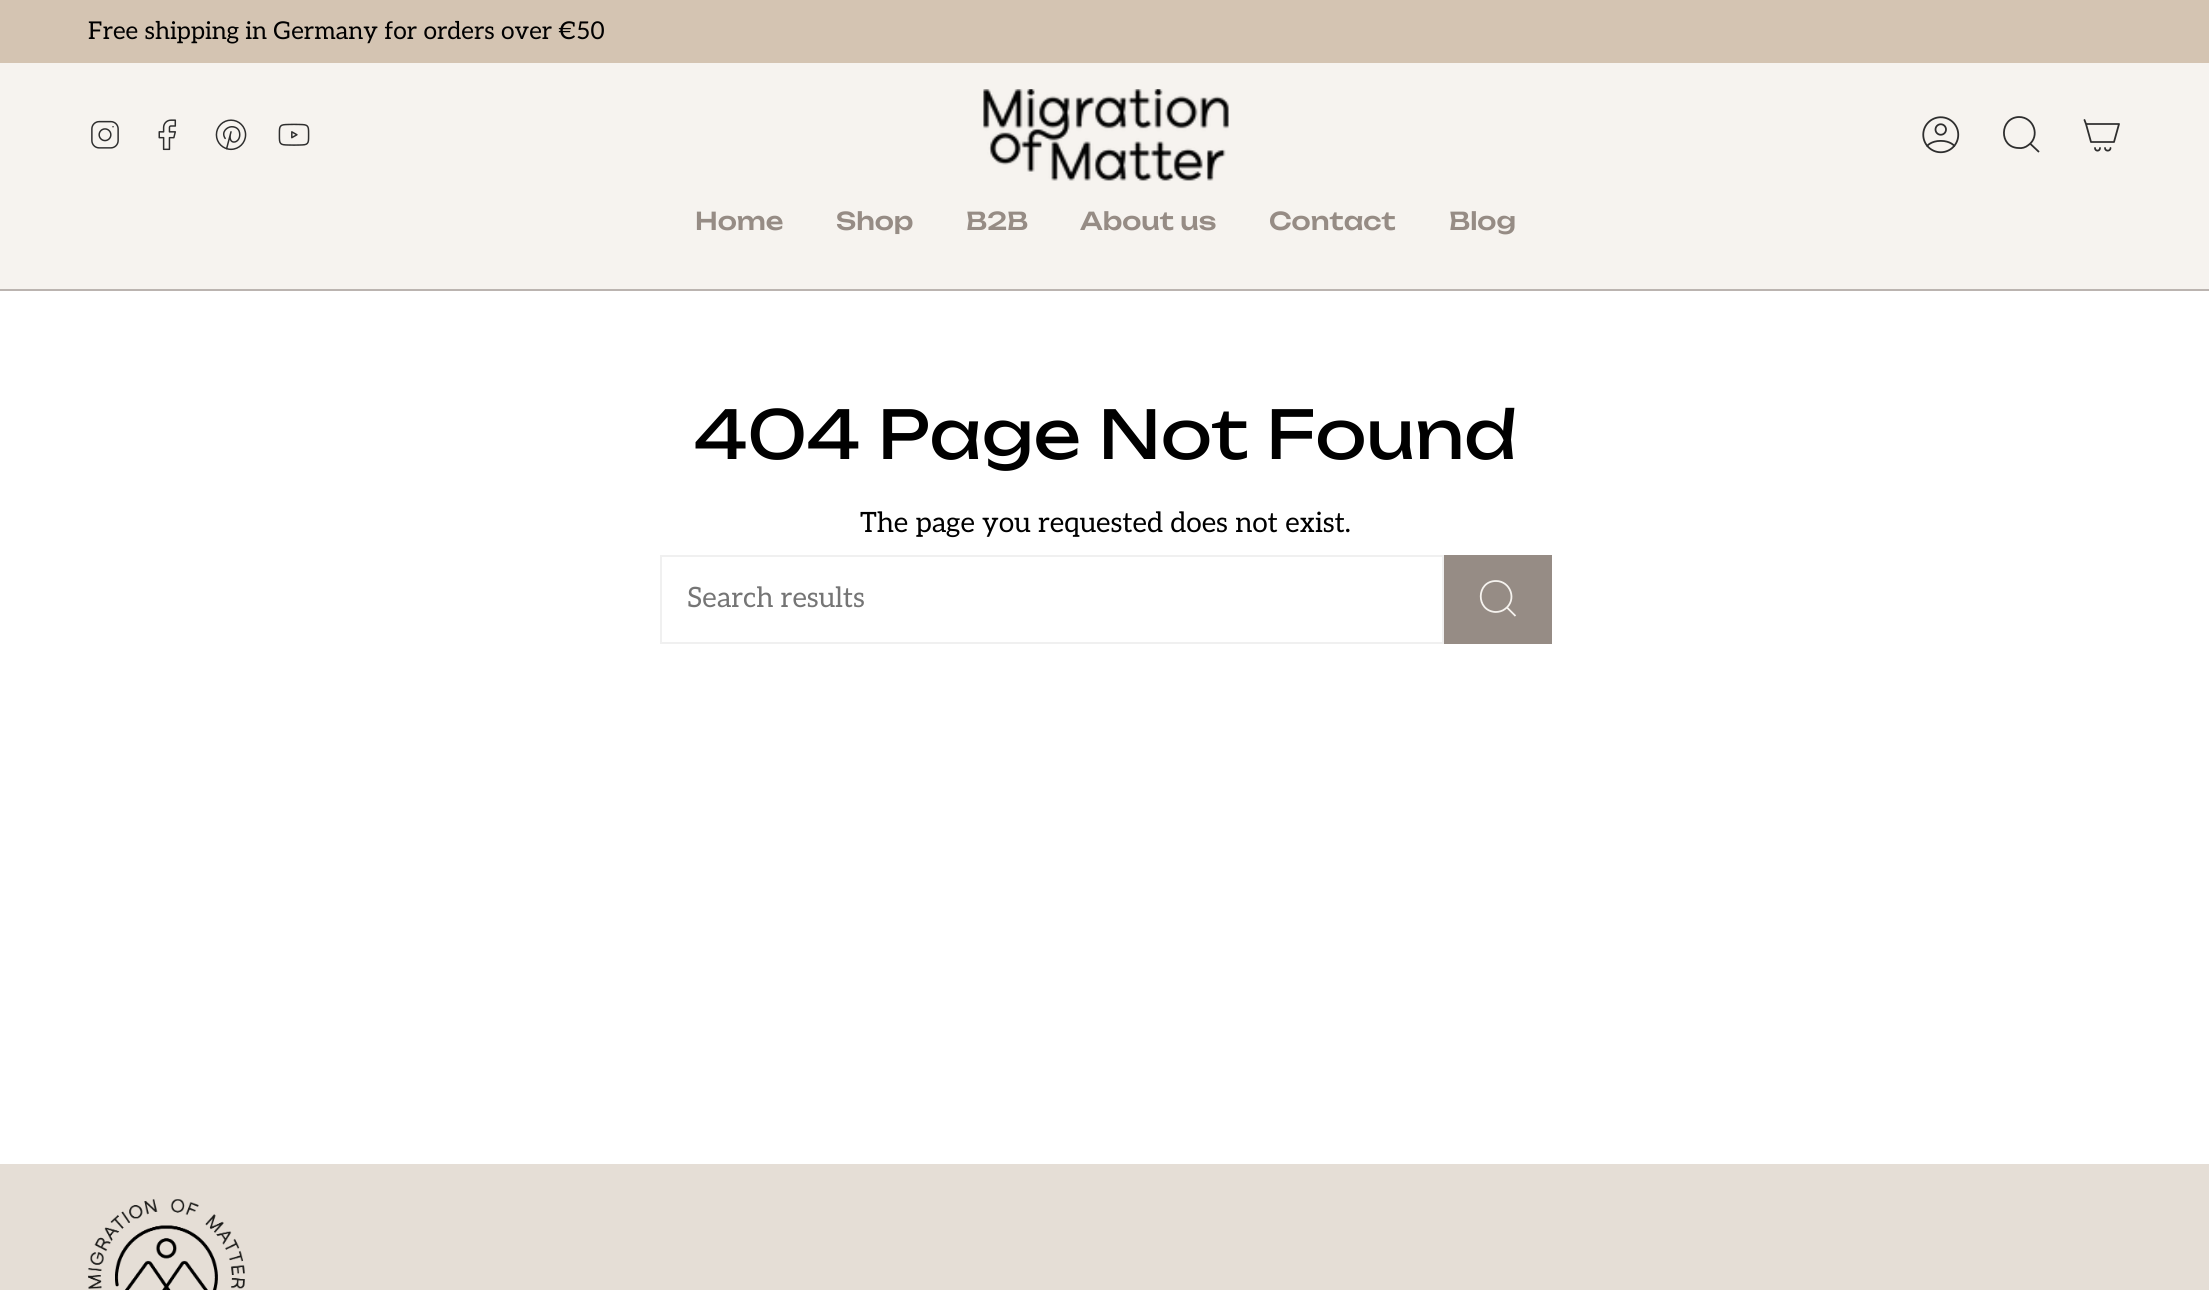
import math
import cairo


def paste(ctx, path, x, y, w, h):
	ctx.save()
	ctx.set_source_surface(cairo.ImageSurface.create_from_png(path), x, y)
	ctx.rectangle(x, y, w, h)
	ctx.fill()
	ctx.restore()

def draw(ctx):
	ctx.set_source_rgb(1, 1, 1)
	ctx.paint()
	ctx.set_source_rgb(0.831, 0.769, 0.698)
	ctx.rectangle(0, 0, 2209, 63)
	ctx.fill()
	ctx.select_font_face('Aleo')
	ctx.set_font_size(24.5)
	ctx.set_source_rgb(0, 0, 0)
	ctx.move_to(88, 39)
	ctx.show_text('Free shipping in Germany for orders over €50')
	ctx.set_source_rgb(0.961, 0.953, 0.937)
	ctx.rectangle(0, 63, 2209, 226)
	ctx.fill()
	paste(ctx, 'media/1.png', 91, 120, 28, 29)
	paste(ctx, 'media/2.png', 158, 119, 19, 32)
	paste(ctx, 'media/3.png', 215, 119, 32, 32)
	paste(ctx, 'media/4.png', 278, 123, 32, 23)
	paste(ctx, 'media/5.png', 983, 89, 246, 92)
	paste(ctx, 'media/6.png', 1922, 116, 38, 38)
	ctx.new_path()
	ctx.move_to(2019, 117)
	ctx.curve_to(2034, 117, 2040.5, 136.5, 2028.5, 145)
	ctx.curve_to(2025.5, 147.5, 2022, 148.5, 2018.5, 148)
	ctx.curve_to(1998.5, 147.5, 1999.5, 117.5, 2019, 117)
	ctx.close_path()
	ctx.move_to(2030, 143.5)
	ctx.line_to(2039, 152)
	ctx.set_source_rgb(0.18, 0.18, 0.18)
	ctx.set_line_width(1.8)
	ctx.stroke()
	ctx.new_path()
	ctx.move_to(2086, 124)
	ctx.line_to(2119, 124)
	ctx.line_to(2114, 142)
	ctx.line_to(2091, 142)
	ctx.close_path()
	ctx.move_to(2086, 124)
	ctx.line_to(2084.5, 120)
	ctx.move_to(2100, 148)
	ctx.curve_to(2100, 151.5, 2095, 151.5, 2095, 148)
	ctx.move_to(2110.5, 148)
	ctx.curve_to(2110.5, 151.5, 2105, 151.5, 2105, 148)
	ctx.set_line_cap(cairo.LINE_CAP_ROUND)
	ctx.set_line_join(cairo.LINE_JOIN_ROUND)
	ctx.stroke()
	ctx.select_font_face('Unbounded Medium')
	ctx.set_source_rgb(0.588, 0.549, 0.522)
	for x, y, s in [
		(695, 230, 'Home'),
		(836, 230, 'Shop'),
		(966, 230, 'B2B'),
		(1080, 230, 'About us'),
		(1269, 230, 'Contact'),
		(1449, 230, 'Blog'),
	]:
		ctx.move_to(x, y)
		ctx.show_text(s)
	ctx.set_source_rgb(0.733, 0.706, 0.69)
	ctx.rectangle(0, 289, 2209, 2)
	ctx.fill()
	ctx.select_font_face('Unbounded')
	ctx.set_font_size(66.5)
	ctx.set_source_rgb(0, 0, 0)
	ctx.move_to(694, 459)
	ctx.show_text('404 Page Not Found')
	ctx.select_font_face('Aleo')
	ctx.set_font_size(28)
	ctx.move_to(860, 532)
	ctx.show_text('The page you requested does not exist.')
	ctx.rectangle(661, 556, 782, 87)
	ctx.set_source_rgb(0.941, 0.941, 0.941)
	ctx.set_line_width(2)
	ctx.set_line_cap(cairo.LINE_CAP_BUTT)
	ctx.set_line_join(cairo.LINE_JOIN_MITER)
	ctx.stroke()
	ctx.set_source_rgb(0.459, 0.459, 0.459)
	ctx.move_to(687, 607)
	ctx.show_text('Search results')
	ctx.set_source_rgb(0.588, 0.549, 0.522)
	ctx.rectangle(1444, 555, 108, 89)
	ctx.fill()
	ctx.new_path()
	ctx.move_to(1496, 581)
	ctx.curve_to(1510.5, 581, 1517.5, 600, 1505, 609)
	ctx.curve_to(1502.5, 611, 1499, 612, 1495.5, 612)
	ctx.curve_to(1475.5, 611, 1476, 581, 1496, 581)
	ctx.close_path()
	ctx.move_to(1507, 607.5)
	ctx.line_to(1515.5, 616)
	ctx.set_source_rgb(0.961, 0.953, 0.937)
	ctx.set_line_width(1.8)
	ctx.stroke()
	ctx.set_source_rgb(0.898, 0.871, 0.839)
	ctx.rectangle(0, 1164, 2209, 126)
	ctx.fill()
	paste(ctx, 'media/7.png', 88, 1199, 157, 91)


surface = cairo.ImageSurface(cairo.FORMAT_RGB24, 2209, 1290)
ctx = cairo.Context(surface)
options = cairo.FontOptions()
options.set_hint_metrics(cairo.HINT_METRICS_OFF)
options.set_hint_style(cairo.HINT_STYLE_NONE)
ctx.set_font_options(options)
ctx.set_miter_limit(4)
draw(ctx)
surface.write_to_png('image.png')
